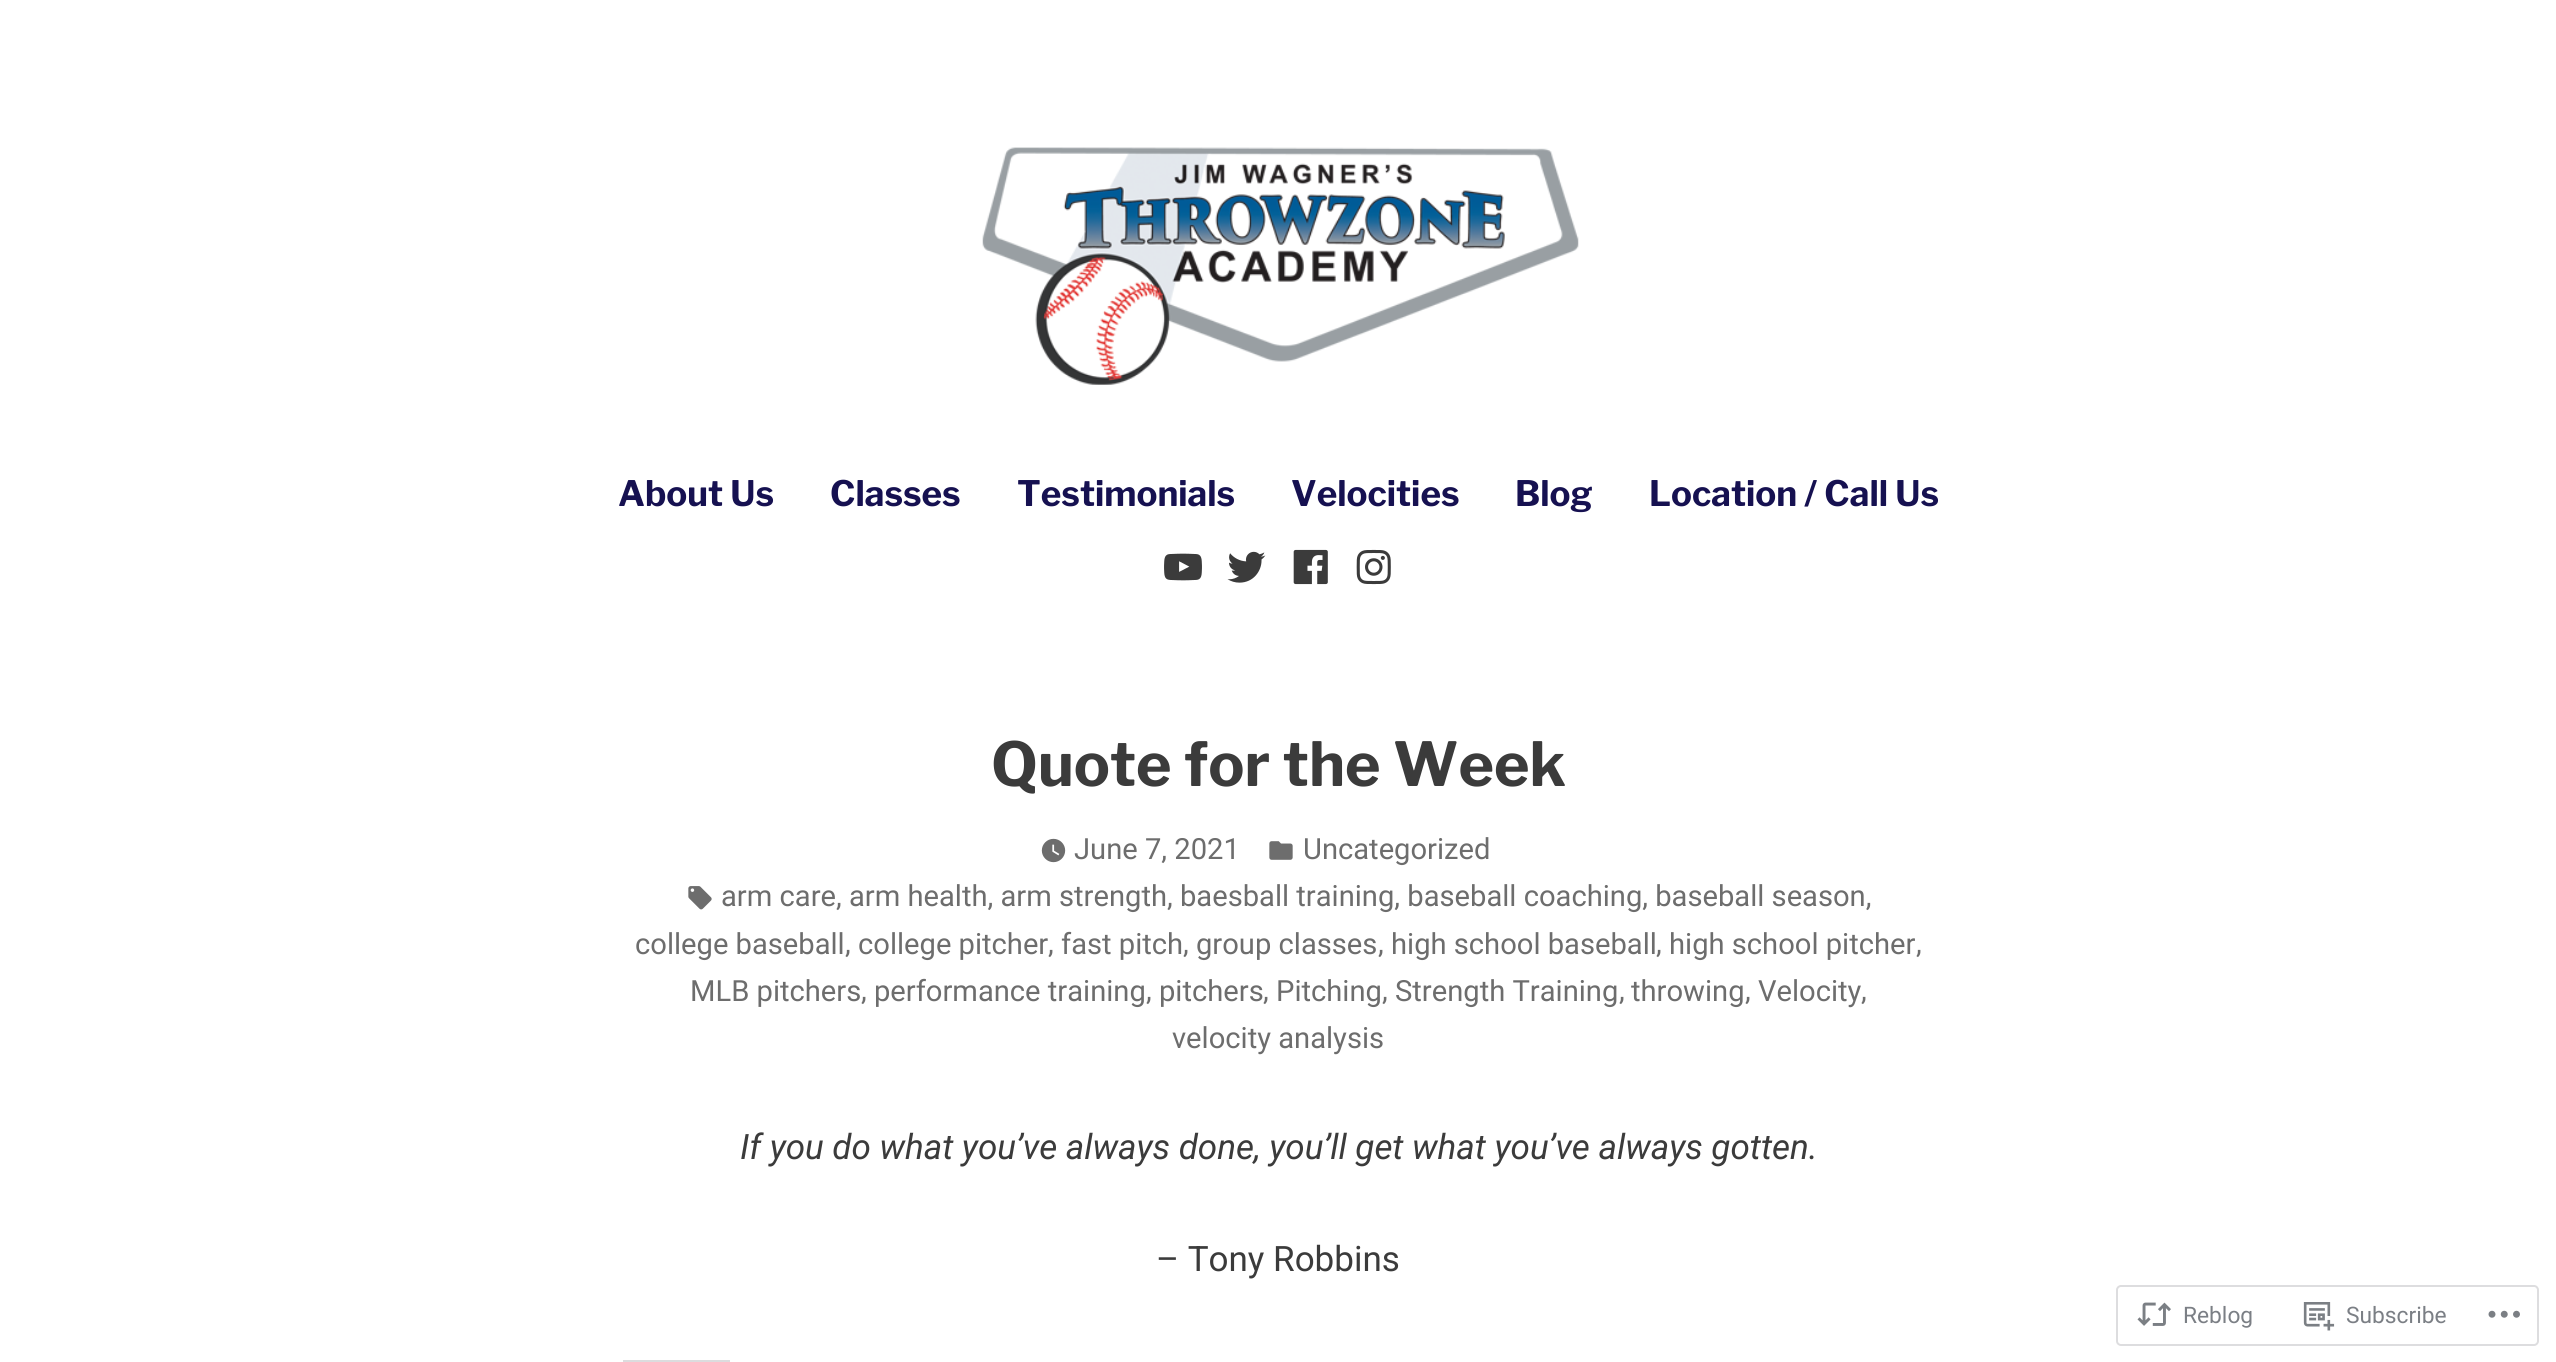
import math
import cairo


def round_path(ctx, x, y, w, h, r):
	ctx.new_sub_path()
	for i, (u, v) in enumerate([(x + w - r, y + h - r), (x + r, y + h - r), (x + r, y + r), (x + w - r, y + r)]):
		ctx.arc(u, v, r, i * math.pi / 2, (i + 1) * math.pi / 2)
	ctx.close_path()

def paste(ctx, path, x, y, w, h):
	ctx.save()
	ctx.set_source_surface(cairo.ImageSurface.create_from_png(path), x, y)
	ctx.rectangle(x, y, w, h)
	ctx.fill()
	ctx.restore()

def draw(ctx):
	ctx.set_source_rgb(1, 1, 1)
	ctx.paint()
	paste(ctx, 'media/1.png', 982, 147, 597, 238)
	ctx.select_font_face('Libre Franklin', cairo.FONT_SLANT_NORMAL, cairo.FONT_WEIGHT_BOLD)
	ctx.set_font_size(35)
	ctx.set_source_rgb(0.086, 0.067, 0.318)
	for x, y, s in [
		(618, 506, 'About Us'),
		(830, 506, 'Classes'),
		(1017, 506, 'Testimonials'),
		(1291, 506, 'Velocities'),
		(1515, 506, 'Blog'),
		(1649, 506, 'Location / Call Us'),
	]:
		ctx.move_to(x, y)
		ctx.show_text(s)
	paste(ctx, 'media/2.png', 1164, 553, 38, 28)
	paste(ctx, 'media/3.png', 1227, 551, 39, 32)
	paste(ctx, 'media/4.png', 1293, 549, 35, 36)
	paste(ctx, 'media/5.png', 1356, 549, 35, 36)
	ctx.set_font_size(60.5)
	ctx.set_source_rgb(0.231, 0.231, 0.231)
	ctx.move_to(991, 786)
	ctx.show_text('Quote for the Week')
	paste(ctx, 'media/6.png', 1041, 838, 25, 25)
	ctx.select_font_face('Roboto')
	ctx.set_font_size(29.15)
	ctx.set_source_rgb(0.427, 0.427, 0.427)
	ctx.move_to(1074, 859)
	ctx.show_text('June 7, 2021')
	paste(ctx, 'media/7.png', 1269, 841, 24, 19)
	ctx.move_to(1303, 859)
	ctx.show_text('Uncategorized')
	paste(ctx, 'media/8.png', 688, 886, 24, 24)
	for x, y, s in [
		(721, 906, 'arm care, arm health, arm strength, baesball training, baseball coaching, baseball season,'),
		(635, 954, 'college baseball'),
		(845, 953, ','),
		(858, 954, 'college pitcher'),
		(1048, 953, ','),
		(1061, 954, 'fast pitch'),
		(1183, 953, ','),
		(1196, 954, 'group classes'),
		(1378, 953, ','),
		(1391, 954, 'high school baseball'),
		(1656, 953, ','),
		(1669, 954, 'high school pitcher'),
		(1916, 953, ','),
		(690, 1001, 'MLB pitchers'),
		(861, 1000, ','),
		(874, 1001, 'performance training'),
		(1146, 1000, ','),
		(1159, 1001, 'pitchers'),
		(1263, 1000, ','),
		(1276, 1001, 'Pitching'),
		(1382, 1000, ','),
		(1395, 1001, 'Strength Training'),
		(1619, 1000, ','),
		(1631, 1001, 'throwing'),
		(1745, 1000, ','),
		(1758, 1001, 'Velocity'),
		(1861, 1000, ','),
		(1172, 1048, 'velocity analysis'),
	]:
		ctx.move_to(x, y)
		ctx.show_text(s)
	ctx.select_font_face('Roboto', cairo.FONT_SLANT_ITALIC)
	ctx.set_font_size(35)
	ctx.set_source_rgb(0.231, 0.231, 0.231)
	ctx.move_to(740, 1159)
	ctx.show_text('If you do what you’ve always done, you’ll get what you’ve always gotten.')
	ctx.select_font_face('Roboto')
	ctx.move_to(1156, 1271)
	ctx.show_text('– Tony Robbins')
	ctx.set_source_rgb(0.863, 0.863, 0.871)
	ctx.rectangle(623, 1360, 107, 2)
	ctx.fill()
	round_path(ctx, 2117, 1286, 421, 59, 4)
	ctx.set_source_rgb(0.867, 0.867, 0.875)
	ctx.stroke()
	paste(ctx, 'media/9.png', 2137, 1302, 34, 24)
	ctx.set_font_size(22.75)
	ctx.set_source_rgb(0.482, 0.498, 0.522)
	ctx.move_to(2183, 1323)
	ctx.show_text('Reblog')
	paste(ctx, 'media/10.png', 2303, 1302, 32, 29)
	ctx.move_to(2346, 1323)
	ctx.show_text('Subscribe')
	paste(ctx, 'media/11.png', 2488, 1310, 32, 8)


surface = cairo.ImageSurface(cairo.FORMAT_RGB24, 2556, 1362)
ctx = cairo.Context(surface)
options = cairo.FontOptions()
options.set_hint_metrics(cairo.HINT_METRICS_OFF)
options.set_hint_style(cairo.HINT_STYLE_NONE)
ctx.set_font_options(options)
ctx.set_miter_limit(4)
draw(ctx)
surface.write_to_png('image.png')
